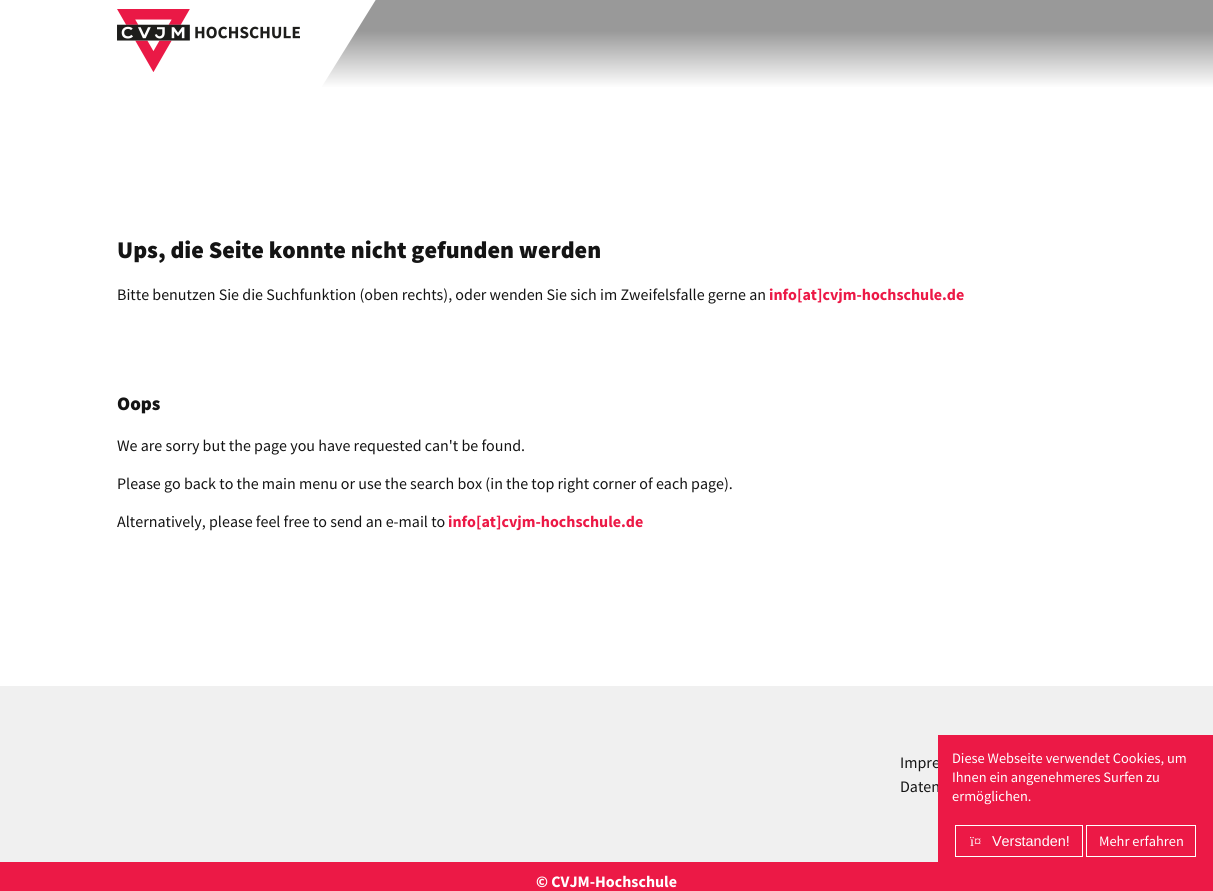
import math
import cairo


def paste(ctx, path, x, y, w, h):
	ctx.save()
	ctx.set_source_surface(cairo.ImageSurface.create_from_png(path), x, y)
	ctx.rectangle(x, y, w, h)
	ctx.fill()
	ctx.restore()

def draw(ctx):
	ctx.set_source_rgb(1, 1, 1)
	ctx.paint()
	gradient = cairo.LinearGradient(607, -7, 607, 88)
	gradient.add_color_stop_rgba(0.4, 0.6, 0.6, 0.6, 1)
	gradient.add_color_stop_rgba(1, 1, 1, 1, 1)
	ctx.set_source(gradient)
	ctx.rectangle(321, 0, 892, 87)
	ctx.fill()
	ctx.set_source_rgb(1, 1, 1)
	ctx.new_path()
	ctx.move_to(-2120, -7)
	ctx.line_to(-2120, 88)
	ctx.line_to(321, 88)
	ctx.line_to(380, -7)
	ctx.close_path()
	ctx.fill()
	paste(ctx, 'media/1.png', 117, 9, 183, 63)
	ctx.select_font_face('Source Sans Pro Black')
	ctx.set_font_size(24)
	ctx.set_source_rgb(0.082, 0.082, 0.082)
	ctx.move_to(117, 258)
	ctx.show_text('Ups, die Seite konnte nicht gefunden werden')
	ctx.select_font_face('Source Sans Pro')
	ctx.set_font_size(16)
	ctx.move_to(117, 300)
	ctx.show_text('Bitte benutzen Sie die Suchfunktion (oben rechts), oder wenden Sie sich im Zweifelsfalle gerne an')
	ctx.select_font_face('Source Sans Pro', cairo.FONT_SLANT_NORMAL, cairo.FONT_WEIGHT_BOLD)
	ctx.set_source_rgb(0.922, 0.098, 0.275)
	ctx.move_to(769, 300)
	ctx.show_text('info[at]cvjm-hochschule.de')
	ctx.select_font_face('Source Sans Pro Black')
	ctx.set_font_size(19)
	ctx.set_source_rgb(0.082, 0.082, 0.082)
	ctx.move_to(117, 410)
	ctx.show_text('Oops')
	ctx.select_font_face('Source Sans Pro')
	ctx.set_font_size(16)
	for x, y, s in [
		(117, 451, 'We are sorry but the page you have requested can\'t be found.'),
		(117, 489, 'Please go back to the main menu or use the search box (in the top right corner of each page).'),
		(117, 527, 'Alternatively, please feel free to send an e-mail to'),
	]:
		ctx.move_to(x, y)
		ctx.show_text(s)
	ctx.select_font_face('Source Sans Pro', cairo.FONT_SLANT_NORMAL, cairo.FONT_WEIGHT_BOLD)
	ctx.set_source_rgb(0.922, 0.098, 0.275)
	ctx.move_to(448, 527)
	ctx.show_text('info[at]cvjm-hochschule.de')
	ctx.set_source_rgb(0.941, 0.941, 0.941)
	ctx.rectangle(0, 686, 1213, 176)
	ctx.fill()
	ctx.select_font_face('Source Sans Pro')
	ctx.set_source_rgb(0.082, 0.082, 0.082)
	ctx.move_to(900, 768)
	ctx.show_text('Impre')
	ctx.move_to(900, 792)
	ctx.show_text('Daten')
	ctx.set_source_rgb(0.922, 0.098, 0.275)
	ctx.rectangle(0, 862, 1213, 29)
	ctx.fill()
	ctx.select_font_face('Source Sans Pro', cairo.FONT_SLANT_NORMAL, cairo.FONT_WEIGHT_BOLD)
	ctx.set_source_rgb(1, 1, 1)
	ctx.move_to(536, 887)
	ctx.show_text('© CVJM-Hochschule')
	ctx.set_source_rgb(0.922, 0.098, 0.275)
	ctx.rectangle(938, 735, 275, 127)
	ctx.fill()
	ctx.select_font_face('Source Sans Pro')
	ctx.set_font_size(14.4)
	ctx.set_source_rgb(1, 1, 1)
	for x, y, s in [
		(952, 763, 'Diese Webseite verwendet Cookies, um'),
		(952, 782, 'Ihnen ein angenehmeres Surfen zu'),
		(952, 801, 'ermöglichen.'),
	]:
		ctx.move_to(x, y)
		ctx.show_text(s)
	ctx.rectangle(955.5, 825.5, 127, 31)
	ctx.set_line_width(1)
	ctx.stroke()
	ctx.select_font_face('Liberation Serif')
	ctx.move_to(970, 846)
	ctx.show_text('ï¤')
	ctx.select_font_face('Liberation Sans')
	ctx.move_to(992, 846)
	ctx.show_text('Verstanden!')
	ctx.rectangle(1086.5, 825.5, 109, 31)
	ctx.stroke()
	ctx.select_font_face('Source Sans Pro')
	ctx.move_to(1099, 846)
	ctx.show_text('Mehr erfahren')


surface = cairo.ImageSurface(cairo.FORMAT_RGB24, 1213, 891)
ctx = cairo.Context(surface)
options = cairo.FontOptions()
options.set_hint_metrics(cairo.HINT_METRICS_OFF)
options.set_hint_style(cairo.HINT_STYLE_NONE)
ctx.set_font_options(options)
ctx.set_miter_limit(4)
draw(ctx)
surface.write_to_png('image.png')
